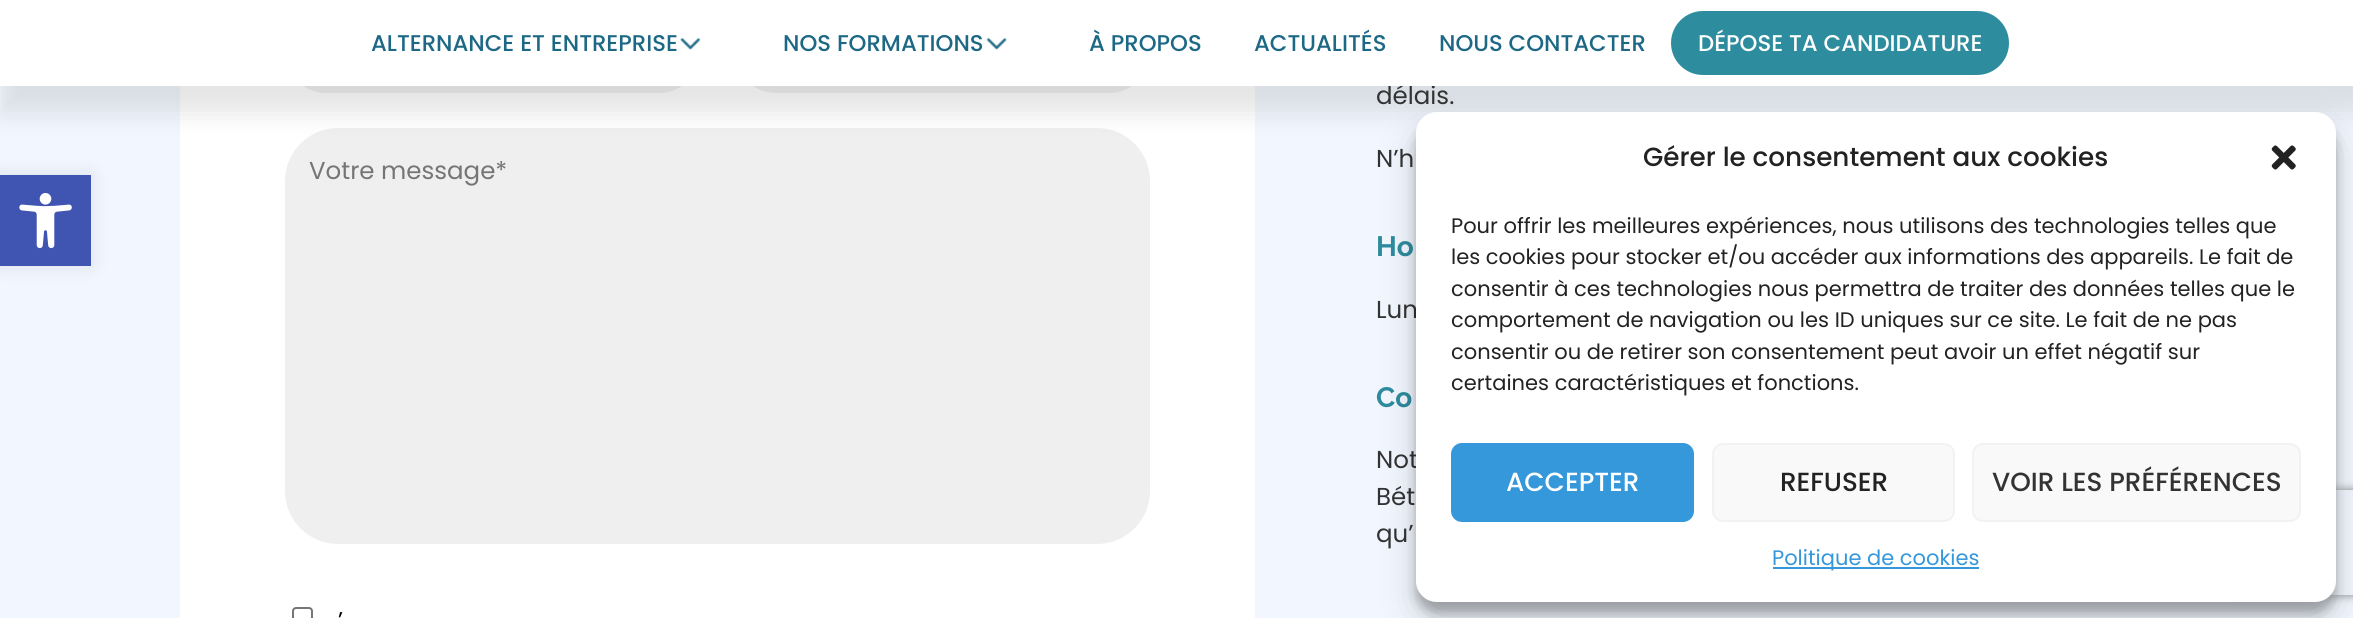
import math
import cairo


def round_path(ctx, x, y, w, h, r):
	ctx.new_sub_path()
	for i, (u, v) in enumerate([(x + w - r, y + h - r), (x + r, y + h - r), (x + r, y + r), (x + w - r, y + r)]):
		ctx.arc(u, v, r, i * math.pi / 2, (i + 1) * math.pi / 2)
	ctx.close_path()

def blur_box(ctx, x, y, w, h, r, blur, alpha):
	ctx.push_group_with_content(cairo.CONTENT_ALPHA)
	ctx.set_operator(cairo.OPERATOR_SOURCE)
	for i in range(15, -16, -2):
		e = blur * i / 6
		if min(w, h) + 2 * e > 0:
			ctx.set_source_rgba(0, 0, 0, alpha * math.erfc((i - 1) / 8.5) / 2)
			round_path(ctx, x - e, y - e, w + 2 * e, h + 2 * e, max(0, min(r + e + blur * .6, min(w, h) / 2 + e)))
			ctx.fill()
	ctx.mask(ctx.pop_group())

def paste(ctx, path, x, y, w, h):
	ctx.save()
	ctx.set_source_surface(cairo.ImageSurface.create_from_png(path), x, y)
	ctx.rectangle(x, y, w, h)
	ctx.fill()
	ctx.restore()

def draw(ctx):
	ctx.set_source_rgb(0.949, 0.965, 1)
	ctx.paint()
	ctx.set_source_rgb(1, 1, 1)
	ctx.rectangle(180, 86, 1075, 532)
	ctx.fill()
	ctx.set_source_rgb(0.937, 0.937, 0.937)
	round_path(ctx, 285, 11, 415, 82, 41)
	ctx.fill()
	round_path(ctx, 735, 11, 415, 82, 41)
	ctx.fill()
	round_path(ctx, 285, 128, 865, 416, 53)
	ctx.fill()
	ctx.set_source_rgb(0, 0, 0)
	blur_box(ctx, 0, 11, 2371, 103, 0, 11.5, 0.1)
	ctx.select_font_face('Poppins')
	ctx.set_font_size(24.5)
	ctx.set_source_rgb(0.2, 0.2, 0.2)
	ctx.move_to(1376, 104)
	ctx.show_text('délais.')
	ctx.set_source_rgb(1, 1, 1)
	ctx.rectangle(0, 0, 2353, 86)
	ctx.fill()
	ctx.select_font_face('Poppins Medium')
	ctx.set_font_size(22.75)
	ctx.set_source_rgb(0.11, 0.408, 0.522)
	ctx.move_to(371, 51)
	ctx.show_text('ALTERNANCE ET ENTREPRISE')
	paste(ctx, 'media/1.png', 680, 37, 21, 13)
	ctx.move_to(783, 51)
	ctx.show_text('NOS FORMATIONS')
	paste(ctx, 'media/2.png', 986, 37, 21, 13)
	for x, y, s in [
		(1089, 51, 'À PROPOS'),
		(1254, 51, 'ACTUALITÉS'),
		(1439, 51, 'NOUS CONTACTER'),
	]:
		ctx.move_to(x, y)
		ctx.show_text(s)
	ctx.set_source_rgb(0.176, 0.553, 0.62)
	round_path(ctx, 1671, 11, 338, 64, 32)
	ctx.fill()
	ctx.set_source_rgb(1, 1, 1)
	ctx.move_to(1698, 51)
	ctx.show_text('DÉPOSE TA CANDIDATURE')
	ctx.set_source_rgb(0, 0, 0)
	blur_box(ctx, 0, 175, 91, 91, 0, 9, 0.1)
	ctx.set_source_rgb(0.251, 0.329, 0.698)
	ctx.rectangle(0, 175, 91, 91)
	ctx.fill()
	paste(ctx, 'media/3.png', 19, 193, 53, 56)
	ctx.select_font_face('Poppins')
	ctx.set_font_size(24.5)
	ctx.set_source_rgb(0.459, 0.459, 0.459)
	ctx.move_to(309, 179)
	ctx.show_text('Votre message*')
	round_path(ctx, 293, 608, 19, 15, 3)
	ctx.set_source_rgb(0.463, 0.463, 0.463)
	ctx.stroke()
	ctx.set_font_size(22.75)
	ctx.set_source_rgb(0, 0, 0)
	ctx.move_to(338, 628)
	ctx.show_text('’')
	ctx.set_font_size(24.5)
	ctx.set_source_rgb(0.2, 0.2, 0.2)
	ctx.move_to(1376, 167)
	ctx.show_text('N’h')
	ctx.select_font_face('Raleway', cairo.FONT_SLANT_NORMAL, cairo.FONT_WEIGHT_BOLD)
	ctx.set_font_size(28)
	ctx.set_source_rgb(0.176, 0.549, 0.62)
	ctx.move_to(1376, 256)
	ctx.show_text('Ho')
	ctx.select_font_face('Poppins')
	ctx.set_font_size(24.5)
	ctx.set_source_rgb(0.2, 0.2, 0.2)
	ctx.move_to(1376, 318)
	ctx.show_text('Lun')
	ctx.select_font_face('Raleway', cairo.FONT_SLANT_NORMAL, cairo.FONT_WEIGHT_BOLD)
	ctx.set_font_size(28)
	ctx.set_source_rgb(0.176, 0.549, 0.62)
	ctx.move_to(1376, 407)
	ctx.show_text('Co')
	ctx.select_font_face('Poppins')
	ctx.set_font_size(24.5)
	ctx.set_source_rgb(0.2, 0.2, 0.2)
	for x, y, s in [
		(1376, 468, 'Not'),
		(1376, 505, 'Bét'),
		(1376, 542, 'qu’'),
	]:
		ctx.move_to(x, y)
		ctx.show_text(s)
	ctx.set_source_rgb(0, 0, 0)
	blur_box(ctx, 1416, 123, 920, 490, 21, 5, 0.23)
	blur_box(ctx, 1416, 130, 920, 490, 21, 17.5, 0.19)
	ctx.save()
	ctx.set_fill_rule(cairo.FILL_RULE_EVEN_ODD)
	ctx.new_path()
	ctx.move_to(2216, 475)
	ctx.line_to(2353, 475)
	ctx.line_to(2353, 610)
	ctx.line_to(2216, 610)
	ctx.close_path()
	ctx.move_to(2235, 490)
	ctx.line_to(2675, 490)
	ctx.curve_to(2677, 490, 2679, 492, 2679, 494)
	ctx.line_to(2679, 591)
	ctx.curve_to(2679, 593, 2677, 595, 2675, 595)
	ctx.line_to(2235, 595)
	ctx.curve_to(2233, 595, 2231, 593, 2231, 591)
	ctx.line_to(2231, 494)
	ctx.curve_to(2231, 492, 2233, 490, 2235, 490)
	ctx.close_path()
	ctx.clip()
	ctx.set_source_rgb(0.502, 0.502, 0.502)
	blur_box(ctx, 2231, 490, 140, 105, 4, 4.5, 1)
	ctx.restore()
	ctx.set_source_rgb(1, 1, 1)
	round_path(ctx, 1416, 112, 920, 490, 21)
	ctx.fill()
	ctx.select_font_face('Poppins Medium')
	ctx.set_font_size(26.25)
	ctx.set_source_rgb(0.133, 0.133, 0.133)
	ctx.move_to(1643, 166)
	ctx.show_text('Gérer le consentement aux cookies')
	paste(ctx, 'media/4.png', 2271, 145, 25, 25)
	ctx.select_font_face('Poppins')
	ctx.set_font_size(21)
	for x, y, s in [
		(1451, 233, 'Pour offrir les meilleures expériences, nous utilisons des technologies telles que'),
		(1451, 264, 'les cookies pour stocker et/ou accéder aux informations des appareils. Le fait de'),
		(1451, 296, 'consentir à ces technologies nous permettra de traiter des données telles que le'),
		(1451, 327, 'comportement de navigation ou les ID uniques sur ce site. Le fait de ne pas'),
		(1451, 359, 'consentir ou de retirer son consentement peut avoir un effet négatif sur'),
		(1451, 390, 'certaines caractéristiques et fonctions.'),
	]:
		ctx.move_to(x, y)
		ctx.show_text(s)
	ctx.set_source_rgb(0.204, 0.596, 0.859)
	round_path(ctx, 1452, 444, 241, 77, 10)
	ctx.fill_preserve()
	ctx.stroke()
	ctx.select_font_face('Poppins Medium')
	ctx.set_font_size(26.25)
	ctx.set_source_rgb(1, 1, 1)
	ctx.move_to(1506, 491)
	ctx.show_text('ACCEPTER')
	ctx.set_source_rgb(0.976, 0.976, 0.976)
	round_path(ctx, 1713, 444, 241, 77, 10)
	ctx.fill_preserve()
	ctx.set_source_rgb(0.949, 0.949, 0.949)
	ctx.stroke()
	ctx.set_source_rgb(0.133, 0.133, 0.133)
	ctx.move_to(1780, 491)
	ctx.show_text('REFUSER')
	ctx.set_source_rgb(0.976, 0.976, 0.976)
	round_path(ctx, 1973, 444, 327, 77, 10)
	ctx.fill_preserve()
	ctx.set_source_rgb(0.949, 0.949, 0.949)
	ctx.stroke()
	ctx.set_source_rgb(0.2, 0.2, 0.2)
	ctx.move_to(1992, 491)
	ctx.show_text('VOIR LES PRÉFÉRENCES')
	ctx.set_source_rgb(0.204, 0.596, 0.859)
	ctx.rectangle(1773, 567, 206, 2)
	ctx.fill()
	ctx.select_font_face('Poppins')
	ctx.set_font_size(21)
	ctx.move_to(1772, 565)
	ctx.show_text('Politique de cookies')


surface = cairo.ImageSurface(cairo.FORMAT_RGB24, 2353, 618)
ctx = cairo.Context(surface)
options = cairo.FontOptions()
options.set_hint_metrics(cairo.HINT_METRICS_OFF)
options.set_hint_style(cairo.HINT_STYLE_NONE)
ctx.set_font_options(options)
ctx.set_miter_limit(4)
draw(ctx)
surface.write_to_png('image.png')
